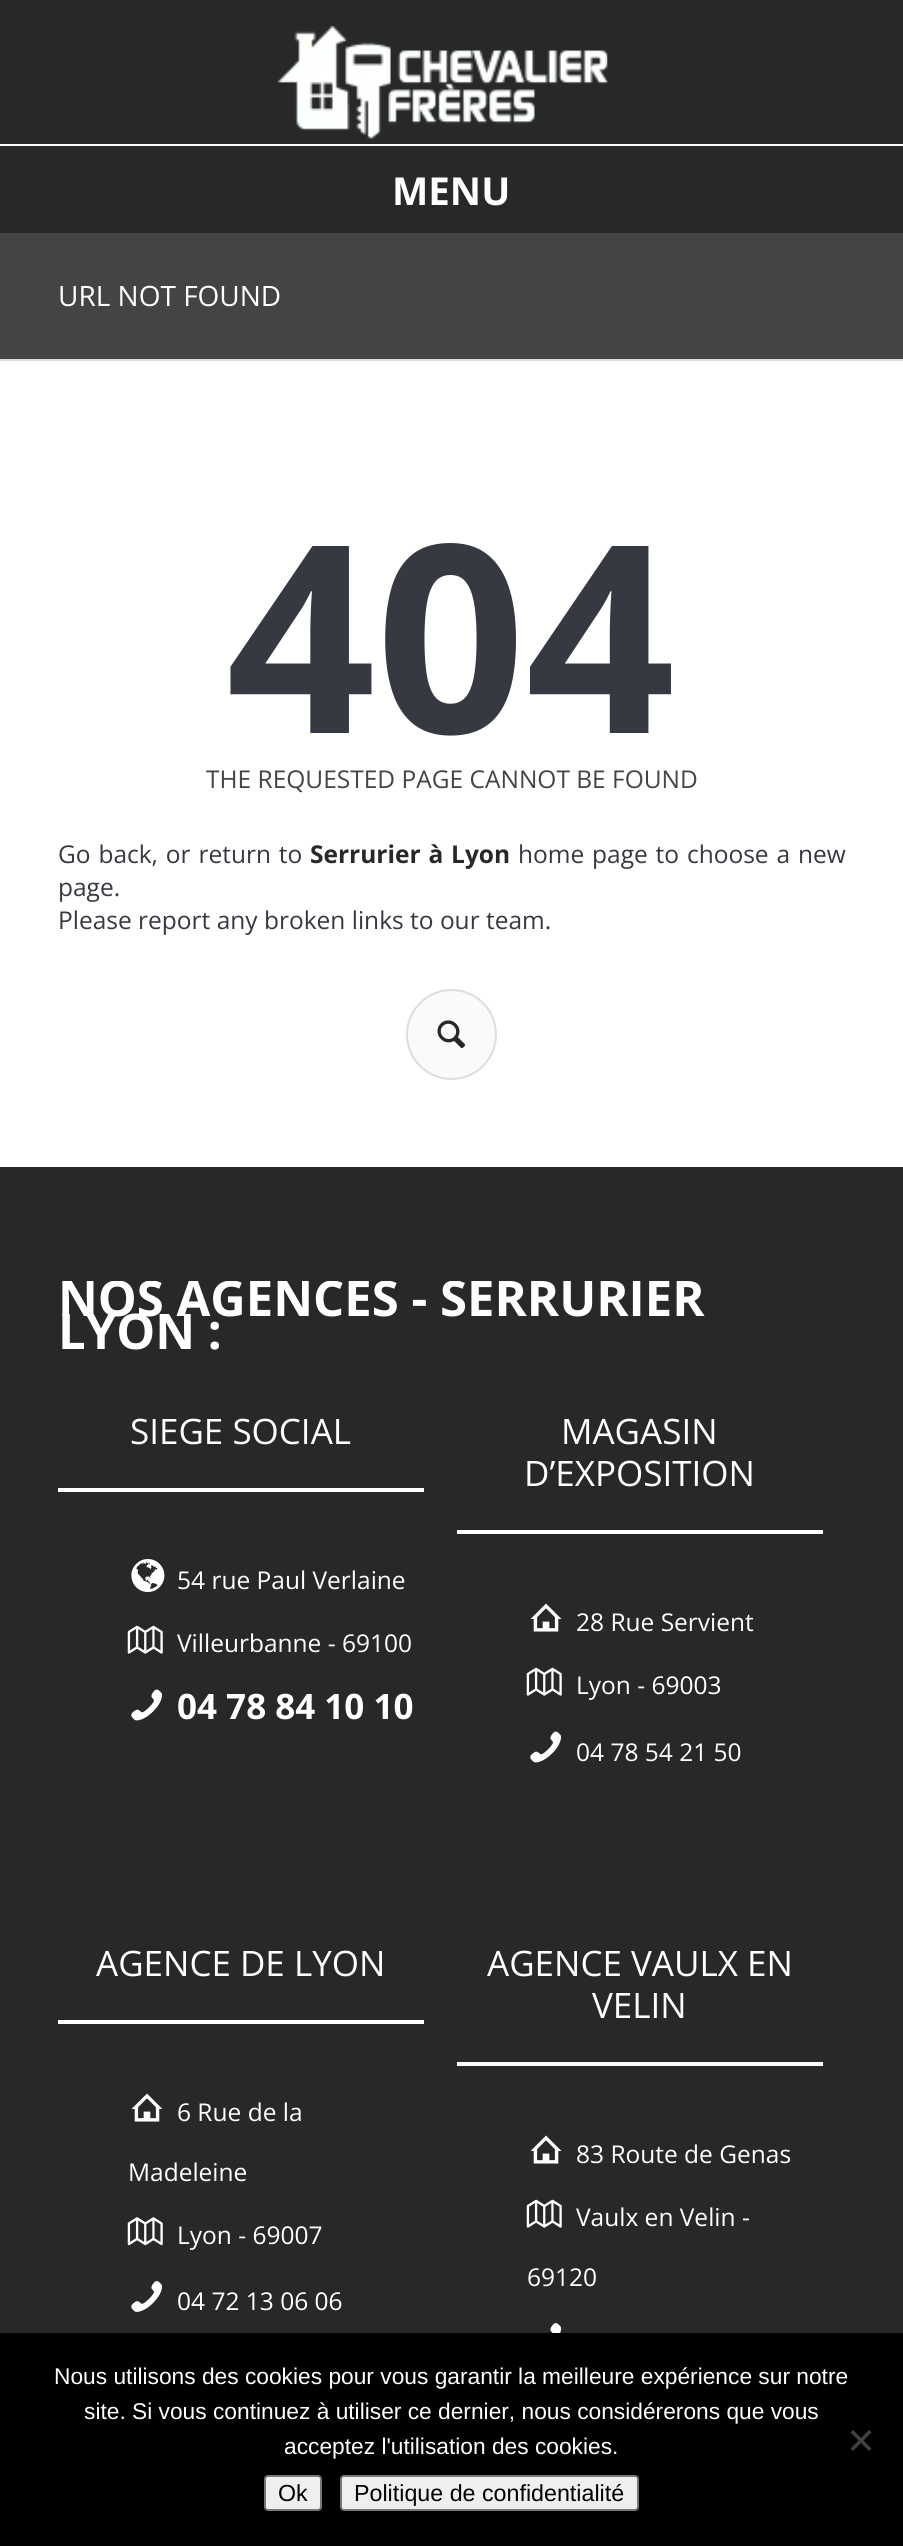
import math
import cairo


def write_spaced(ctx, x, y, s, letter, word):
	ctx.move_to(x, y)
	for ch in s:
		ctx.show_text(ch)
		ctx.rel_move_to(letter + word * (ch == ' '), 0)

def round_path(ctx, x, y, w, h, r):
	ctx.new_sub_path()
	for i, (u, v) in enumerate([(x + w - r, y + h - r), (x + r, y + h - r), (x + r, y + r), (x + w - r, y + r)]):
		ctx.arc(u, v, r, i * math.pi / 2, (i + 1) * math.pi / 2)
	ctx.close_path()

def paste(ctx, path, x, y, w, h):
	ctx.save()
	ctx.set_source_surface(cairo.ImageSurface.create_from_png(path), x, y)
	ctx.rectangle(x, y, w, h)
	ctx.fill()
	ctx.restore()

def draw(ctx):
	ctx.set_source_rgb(1, 1, 1)
	ctx.paint()
	ctx.set_source_rgb(0.157, 0.157, 0.157)
	ctx.rectangle(0, 0, 903, 233)
	ctx.fill()
	paste(ctx, 'media/1.png', 278, 26, 330, 113)
	ctx.set_source_rgb(1, 1, 1)
	ctx.rectangle(0, 144, 903, 2)
	ctx.fill()
	ctx.select_font_face('Open Sans', cairo.FONT_SLANT_NORMAL, cairo.FONT_WEIGHT_BOLD)
	ctx.set_font_size(38.5)
	ctx.move_to(392, 205)
	ctx.show_text('MENU')
	ctx.set_source_rgb(0.267, 0.267, 0.267)
	ctx.rectangle(0, 233, 903, 126)
	ctx.fill()
	ctx.set_source_rgb(0.867, 0.867, 0.867)
	ctx.rectangle(0, 359, 903, 2)
	ctx.fill()
	ctx.select_font_face('Open Sans')
	ctx.set_font_size(28)
	ctx.set_source_rgb(1, 1, 1)
	ctx.move_to(58, 306)
	ctx.show_text('URL NOT FOUND')
	ctx.select_font_face('Open Sans', cairo.FONT_SLANT_NORMAL, cairo.FONT_WEIGHT_BOLD)
	ctx.set_font_size(262)
	ctx.set_source_rgb(0.212, 0.22, 0.259)
	ctx.move_to(226, 733)
	ctx.show_text('404')
	ctx.select_font_face('Open Sans')
	ctx.set_font_size(24.5)
	ctx.set_source_rgb(0.267, 0.267, 0.267)
	ctx.move_to(206, 788)
	ctx.show_text('THE REQUESTED PAGE CANNOT BE FOUND')
	ctx.set_source_rgb(0.212, 0.22, 0.259)
	write_spaced(ctx, 58, 863, 'Go back, or return to', 0, 1.5)
	ctx.select_font_face('Open Sans', cairo.FONT_SLANT_NORMAL, cairo.FONT_WEIGHT_BOLD)
	ctx.set_source_rgb(0.157, 0.157, 0.157)
	write_spaced(ctx, 310, 863, 'Serrurier à Lyon', 0, 1.5)
	ctx.select_font_face('Open Sans')
	ctx.set_source_rgb(0.212, 0.22, 0.259)
	write_spaced(ctx, 518, 863, 'home page to choose a new', 0, 1.5)
	ctx.move_to(58, 896)
	ctx.show_text('page.')
	ctx.move_to(58, 929)
	ctx.show_text('Please report any broken links to our team.')
	ctx.set_source_rgb(0.98, 0.98, 0.98)
	ctx.new_path()
	ctx.arc(451.5, 1034.5, 44.5, 0, 2 * math.pi)
	ctx.fill_preserve()
	ctx.set_source_rgb(0.867, 0.867, 0.867)
	ctx.stroke()
	paste(ctx, 'media/2.png', 437, 1020, 29, 29)
	ctx.set_source_rgb(0.157, 0.157, 0.157)
	ctx.rectangle(0, 1167, 903, 1166)
	ctx.fill()
	ctx.save()
	ctx.rectangle(58, 1281, 787, 1253)
	ctx.clip()
	ctx.select_font_face('Open Sans', cairo.FONT_SLANT_NORMAL, cairo.FONT_WEIGHT_BOLD)
	ctx.set_font_size(49)
	ctx.set_source_rgb(1, 1, 1)
	ctx.move_to(58, 1316)
	ctx.show_text('NOS AGENCES - SERRURIER')
	ctx.restore()
	ctx.select_font_face('Open Sans', cairo.FONT_SLANT_NORMAL, cairo.FONT_WEIGHT_BOLD)
	ctx.set_font_size(49)
	ctx.set_source_rgb(1, 1, 1)
	ctx.move_to(58, 1349)
	ctx.show_text('LYON :')
	ctx.select_font_face('Open Sans')
	ctx.set_font_size(35)
	ctx.move_to(130, 1444)
	ctx.show_text('SIEGE SOCIAL')
	ctx.rectangle(58, 1488, 366, 4)
	ctx.fill()
	paste(ctx, 'media/3.png', 131, 1559, 34, 33)
	ctx.set_font_size(24.5)
	ctx.move_to(177, 1589)
	ctx.show_text('54 rue Paul Verlaine')
	paste(ctx, 'media/4.png', 127, 1625, 36, 29)
	ctx.move_to(177, 1652)
	ctx.show_text('Villeurbanne - 69100')
	paste(ctx, 'media/5.png', 131, 1689, 32, 32)
	ctx.select_font_face('Open Sans', cairo.FONT_SLANT_NORMAL, cairo.FONT_WEIGHT_BOLD)
	ctx.set_font_size(35)
	ctx.move_to(177, 1719)
	ctx.show_text('04 78 84 10 10')
	ctx.select_font_face('Open Sans')
	ctx.move_to(561, 1444)
	ctx.show_text('MAGASIN')
	ctx.move_to(524, 1486)
	ctx.show_text('D’EXPOSITION')
	ctx.rectangle(457, 1530, 366, 4)
	ctx.fill()
	paste(ctx, 'media/6.png', 530, 1603, 32, 29)
	ctx.set_font_size(24.5)
	ctx.move_to(576, 1631)
	ctx.show_text('28 Rue Servient')
	paste(ctx, 'media/4.png', 526, 1667, 36, 29)
	ctx.move_to(576, 1694)
	ctx.show_text('Lyon - 69003')
	paste(ctx, 'media/5.png', 530, 1731, 32, 32)
	ctx.move_to(576, 1761)
	ctx.show_text('04 78 54 21 50')
	ctx.set_font_size(35)
	ctx.move_to(96, 1976)
	ctx.show_text('AGENCE DE LYON')
	ctx.rectangle(58, 2020, 366, 4)
	ctx.fill()
	paste(ctx, 'media/6.png', 131, 2093, 32, 29)
	ctx.set_font_size(24.5)
	ctx.move_to(177, 2121)
	ctx.show_text('6 Rue de la')
	ctx.move_to(128, 2181)
	ctx.show_text('Madeleine')
	paste(ctx, 'media/7.png', 127, 2217, 36, 29)
	ctx.move_to(177, 2244)
	ctx.show_text('Lyon - 69007')
	paste(ctx, 'media/8.png', 131, 2281, 32, 31)
	ctx.move_to(177, 2310)
	ctx.show_text('04 72 13 06 06')
	ctx.set_font_size(35)
	ctx.move_to(487, 1976)
	ctx.show_text('AGENCE VAULX EN')
	ctx.move_to(592, 2018)
	ctx.show_text('VELIN')
	ctx.rectangle(457, 2062, 366, 4)
	ctx.fill()
	paste(ctx, 'media/6.png', 530, 2135, 32, 29)
	ctx.set_font_size(24.5)
	ctx.move_to(576, 2163)
	ctx.show_text('83 Route de Genas')
	paste(ctx, 'media/4.png', 526, 2199, 36, 29)
	ctx.move_to(576, 2226)
	ctx.show_text('Vaulx en Velin -')
	ctx.move_to(527, 2286)
	ctx.show_text('69120')
	paste(ctx, 'media/9.png', 550, 2323, 12, 10)
	ctx.set_source_rgb(0, 0, 0)
	ctx.rectangle(0, 2333, 903, 213)
	ctx.fill()
	ctx.select_font_face('Liberation Sans')
	ctx.set_font_size(22.75)
	ctx.set_source_rgb(1, 1, 1)
	for x, y, s in [
		(54, 2384, 'Nous utilisons des cookies pour vous garantir la meilleure expérience sur notre'),
		(84, 2419, 'site. Si vous continuez à utiliser ce dernier, nous considérerons que vous'),
		(284, 2454, 'acceptez l\'utilisation des cookies.'),
	]:
		ctx.move_to(x, y)
		ctx.show_text(s)
	ctx.set_source_rgb(0.251, 0.251, 0.251)
	ctx.new_path()
	ctx.move_to(869, 2430)
	ctx.line_to(871.5, 2432.5)
	ctx.line_to(853, 2451)
	ctx.line_to(850.5, 2448.5)
	ctx.close_path()
	ctx.fill()
	ctx.new_path()
	ctx.move_to(850.5, 2432.5)
	ctx.line_to(853, 2430)
	ctx.line_to(871.5, 2448.5)
	ctx.line_to(869, 2451)
	ctx.close_path()
	ctx.fill()
	ctx.set_source_rgb(0.937, 0.937, 0.937)
	round_path(ctx, 265, 2476, 56, 34, 3)
	ctx.fill_preserve()
	ctx.set_source_rgb(0.463, 0.463, 0.463)
	ctx.stroke()
	ctx.set_font_size(23.25)
	ctx.set_source_rgb(0, 0, 0)
	ctx.move_to(278, 2501)
	ctx.show_text('Ok')
	ctx.set_source_rgb(0.937, 0.937, 0.937)
	round_path(ctx, 341, 2476, 297, 34, 3)
	ctx.fill_preserve()
	ctx.set_source_rgb(0.463, 0.463, 0.463)
	ctx.stroke()
	ctx.set_source_rgb(0, 0, 0)
	ctx.move_to(354, 2501)
	ctx.show_text('Politique de confidentialité')


surface = cairo.ImageSurface(cairo.FORMAT_RGB24, 903, 2546)
ctx = cairo.Context(surface)
options = cairo.FontOptions()
options.set_hint_metrics(cairo.HINT_METRICS_OFF)
options.set_hint_style(cairo.HINT_STYLE_NONE)
ctx.set_font_options(options)
ctx.set_miter_limit(4)
draw(ctx)
surface.write_to_png('image.png')
